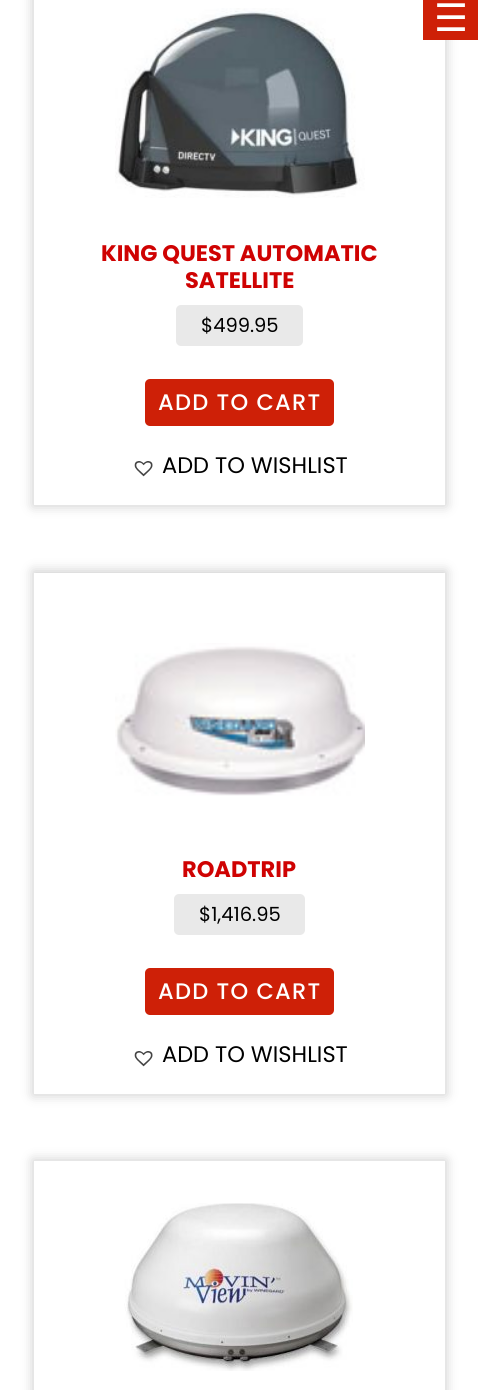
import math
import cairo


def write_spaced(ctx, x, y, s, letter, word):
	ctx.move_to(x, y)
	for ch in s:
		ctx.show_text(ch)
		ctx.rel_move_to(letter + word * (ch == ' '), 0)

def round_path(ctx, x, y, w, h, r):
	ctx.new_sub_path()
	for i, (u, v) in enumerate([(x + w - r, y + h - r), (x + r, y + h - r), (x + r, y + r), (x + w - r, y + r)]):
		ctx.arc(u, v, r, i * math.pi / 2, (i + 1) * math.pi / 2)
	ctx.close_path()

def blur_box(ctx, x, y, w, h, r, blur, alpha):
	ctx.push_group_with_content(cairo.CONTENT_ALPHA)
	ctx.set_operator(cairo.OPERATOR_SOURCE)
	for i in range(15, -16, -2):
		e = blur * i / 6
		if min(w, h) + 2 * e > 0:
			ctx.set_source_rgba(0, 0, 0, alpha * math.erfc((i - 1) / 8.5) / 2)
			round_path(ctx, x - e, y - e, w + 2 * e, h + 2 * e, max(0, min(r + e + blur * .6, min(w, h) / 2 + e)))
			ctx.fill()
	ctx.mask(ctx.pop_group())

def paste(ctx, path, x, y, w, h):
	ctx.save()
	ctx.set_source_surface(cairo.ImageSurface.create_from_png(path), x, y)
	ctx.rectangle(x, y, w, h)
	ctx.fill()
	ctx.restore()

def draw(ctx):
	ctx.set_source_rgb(1, 1, 1)
	ctx.paint()
	ctx.save()
	ctx.set_fill_rule(cairo.FILL_RULE_EVEN_ODD)
	ctx.new_path()
	ctx.move_to(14, 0)
	ctx.line_to(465, 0)
	ctx.line_to(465, 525)
	ctx.line_to(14, 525)
	ctx.close_path()
	ctx.move_to(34, -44)
	ctx.line_to(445, -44)
	ctx.line_to(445, 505)
	ctx.line_to(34, 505)
	ctx.close_path()
	ctx.clip()
	ctx.set_source_rgb(0, 0, 0)
	blur_box(ctx, 33, -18, 413, 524, 0, 6, 0.2)
	ctx.restore()
	ctx.set_source_rgb(0.808, 0.125, 0.031)
	ctx.rectangle(423, 0, 55, 40)
	ctx.fill()
	ctx.select_font_face('DejaVu Sans')
	ctx.set_font_size(38)
	ctx.set_source_rgb(1, 1, 1)
	ctx.move_to(434, 31)
	ctx.show_text('☰')
	paste(ctx, 'media/1.png', 115, 8, 250, 190)
	ctx.select_font_face('Poppins', cairo.FONT_SLANT_NORMAL, cairo.FONT_WEIGHT_BOLD)
	ctx.set_font_size(22.5)
	ctx.set_source_rgb(0.812, 0.008, 0.008)
	ctx.move_to(101, 261)
	ctx.show_text('KING QUEST AUTOMATIC')
	ctx.move_to(185, 288)
	ctx.show_text('SATELLITE')
	ctx.set_source_rgb(0.914, 0.914, 0.914)
	round_path(ctx, 176, 305, 127, 41, 5)
	ctx.fill()
	ctx.select_font_face('Poppins')
	ctx.set_font_size(19.5)
	ctx.set_source_rgb(0, 0, 0)
	ctx.move_to(201, 332)
	ctx.show_text('$499.95')
	ctx.set_source_rgb(0.808, 0.125, 0.031)
	round_path(ctx, 145, 379, 189, 47, 5)
	ctx.fill()
	ctx.select_font_face('Poppins Medium')
	ctx.set_font_size(22.5)
	ctx.set_source_rgb(1, 1, 1)
	write_spaced(ctx, 158, 410, 'ADD TO CART', 1.25, 0)
	paste(ctx, 'media/2.png', 134, 461, 19, 16)
	ctx.select_font_face('Poppins')
	ctx.set_source_rgb(0, 0, 0)
	ctx.move_to(162, 473)
	ctx.show_text('ADD TO WISHLIST')
	ctx.set_source_rgb(0, 0, 0)
	blur_box(ctx, 33, 571, 413, 524, 0, 6, 0.2)
	ctx.set_source_rgb(1, 1, 1)
	ctx.rectangle(34, 573, 411, 521)
	ctx.fill()
	paste(ctx, 'media/3.png', 115, 643, 250, 153)
	ctx.select_font_face('Poppins', cairo.FONT_SLANT_NORMAL, cairo.FONT_WEIGHT_BOLD)
	ctx.set_source_rgb(0.812, 0.008, 0.008)
	ctx.move_to(182, 877)
	ctx.show_text('ROADTRIP')
	ctx.set_source_rgb(0.914, 0.914, 0.914)
	round_path(ctx, 174, 894, 131, 41, 5)
	ctx.fill()
	ctx.select_font_face('Poppins')
	ctx.set_font_size(19.5)
	ctx.set_source_rgb(0, 0, 0)
	ctx.move_to(199, 921)
	ctx.show_text('$1,416.95')
	ctx.set_source_rgb(0.808, 0.125, 0.031)
	round_path(ctx, 145, 968, 189, 47, 5)
	ctx.fill()
	ctx.select_font_face('Poppins Medium')
	ctx.set_font_size(22.5)
	ctx.set_source_rgb(1, 1, 1)
	write_spaced(ctx, 158, 999, 'ADD TO CART', 1.25, 0)
	paste(ctx, 'media/2.png', 134, 1051, 19, 16)
	ctx.select_font_face('Poppins')
	ctx.set_source_rgb(0, 0, 0)
	ctx.move_to(162, 1062)
	ctx.show_text('ADD TO WISHLIST')
	ctx.set_source_rgb(0, 0, 0)
	blur_box(ctx, 33, 1160, 413, 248, 0, 6, 0.2)
	ctx.set_source_rgb(1, 1, 1)
	ctx.rectangle(34, 1161, 411, 229)
	ctx.fill()
	paste(ctx, 'media/4.png', 124, 1203, 229, 168)


surface = cairo.ImageSurface(cairo.FORMAT_RGB24, 478, 1390)
ctx = cairo.Context(surface)
options = cairo.FontOptions()
options.set_hint_metrics(cairo.HINT_METRICS_OFF)
options.set_hint_style(cairo.HINT_STYLE_NONE)
ctx.set_font_options(options)
ctx.set_miter_limit(4)
draw(ctx)
surface.write_to_png('image.png')
